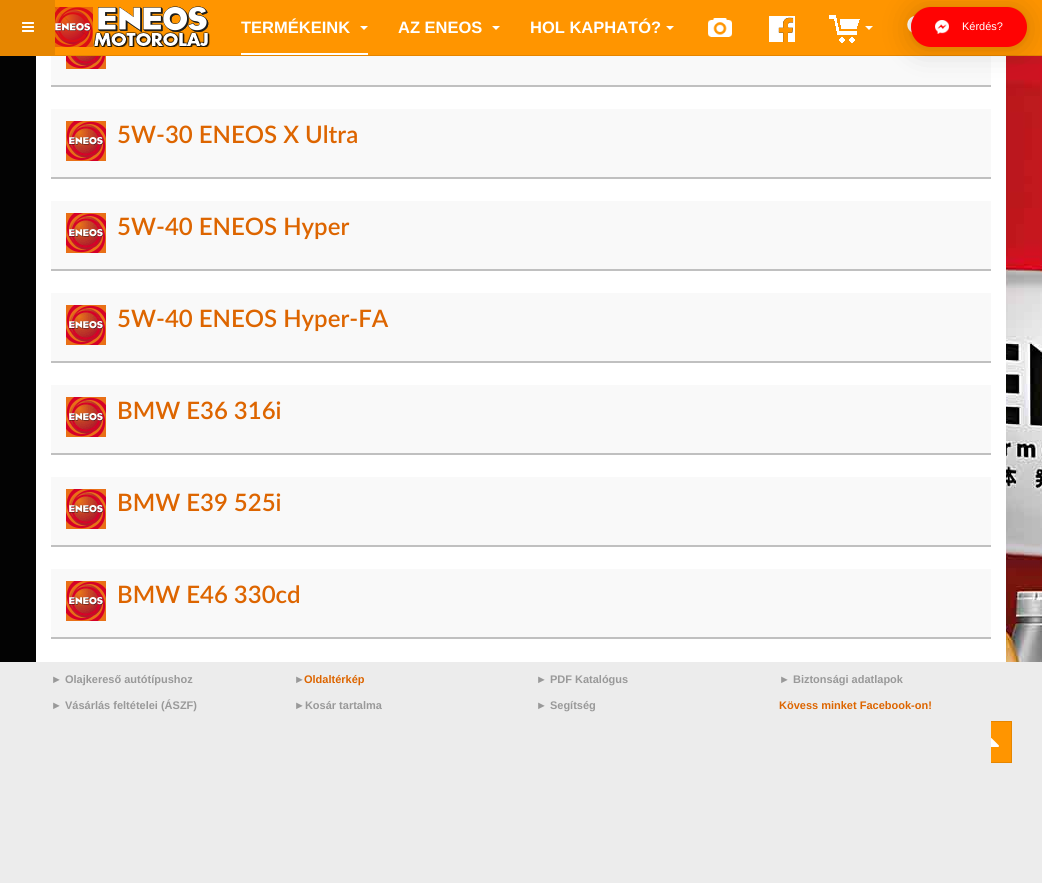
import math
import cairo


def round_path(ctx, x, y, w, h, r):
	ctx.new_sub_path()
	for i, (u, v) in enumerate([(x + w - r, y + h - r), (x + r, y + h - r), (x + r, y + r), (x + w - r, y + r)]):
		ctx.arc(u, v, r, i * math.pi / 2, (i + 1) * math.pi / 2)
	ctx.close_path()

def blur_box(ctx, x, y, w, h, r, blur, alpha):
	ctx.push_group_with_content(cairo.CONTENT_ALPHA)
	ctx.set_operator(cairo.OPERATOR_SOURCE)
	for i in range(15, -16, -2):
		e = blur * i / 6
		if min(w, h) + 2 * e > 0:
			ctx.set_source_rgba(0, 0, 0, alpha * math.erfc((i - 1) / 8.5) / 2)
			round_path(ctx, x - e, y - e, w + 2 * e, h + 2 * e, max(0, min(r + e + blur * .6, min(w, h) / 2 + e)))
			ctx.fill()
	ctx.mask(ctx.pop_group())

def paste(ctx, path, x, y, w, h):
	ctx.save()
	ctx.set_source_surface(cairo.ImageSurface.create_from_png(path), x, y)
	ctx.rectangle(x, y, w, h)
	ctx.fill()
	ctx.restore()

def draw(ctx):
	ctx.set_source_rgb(1, 1, 1)
	ctx.paint()
	paste(ctx, 'media/1.png', 0, 56, 1042, 606)
	ctx.set_source_rgb(1, 0.584, 0)
	ctx.rectangle(55, 0, 987, 55)
	ctx.fill()
	ctx.set_source_rgb(0.902, 0.525, 0)
	ctx.rectangle(0, 55, 1042, 1)
	ctx.rectangle(0, 0, 55, 55)
	ctx.fill()
	paste(ctx, 'media/2.png', 22, 22, 12, 10)
	ctx.set_source_rgb(1, 1, 1)
	ctx.rectangle(241, 53, 127, 2)
	ctx.fill()
	ctx.select_font_face('Liberation Sans', cairo.FONT_SLANT_NORMAL, cairo.FONT_WEIGHT_BOLD)
	ctx.set_font_size(16.5)
	ctx.move_to(241, 33)
	ctx.show_text('TERMÉKEINK')
	ctx.new_path()
	ctx.move_to(360, 26)
	ctx.line_to(368, 26)
	ctx.line_to(364, 30)
	ctx.close_path()
	ctx.fill()
	ctx.move_to(398, 33)
	ctx.show_text('AZ ENEOS')
	ctx.new_path()
	ctx.move_to(492, 26)
	ctx.line_to(500, 26)
	ctx.line_to(496, 30)
	ctx.close_path()
	ctx.fill()
	ctx.move_to(530, 33)
	ctx.show_text('HOL KAPHATÓ?')
	ctx.new_path()
	ctx.move_to(666, 26)
	ctx.line_to(674, 26)
	ctx.line_to(670, 30)
	ctx.close_path()
	ctx.fill()
	paste(ctx, 'media/3.png', 708, 18, 24, 19)
	paste(ctx, 'media/4.png', 769, 16, 26, 26)
	paste(ctx, 'media/5.png', 829, 15, 31, 28)
	ctx.new_path()
	ctx.move_to(865, 26)
	ctx.line_to(873, 26)
	ctx.line_to(869, 30)
	ctx.close_path()
	ctx.fill()
	paste(ctx, 'media/6.png', 907, 16, 8, 17)
	paste(ctx, 'media/7.png', 55, 6, 155, 41)
	ctx.rectangle(36, 56, 970, 606)
	ctx.fill()
	ctx.set_source_rgb(0.976, 0.976, 0.976)
	ctx.rectangle(51, 56, 940, 29)
	ctx.fill()
	ctx.set_source_rgb(0.753, 0.753, 0.753)
	ctx.rectangle(51, 85, 940, 2)
	ctx.fill()
	ctx.set_source_rgb(0, 0, 0)
	blur_box(ctx, 911, 9, 116, 40, 20, 16, 0.16)
	blur_box(ctx, 911, 8, 116, 40, 20, 3, 0.06)
	ctx.set_source_rgb(1, 0.012, 0.012)
	round_path(ctx, 911, 7, 116, 40, 20)
	ctx.fill()
	paste(ctx, 'media/8.png', 935, 20, 14, 14)
	ctx.select_font_face('Liberation Sans')
	ctx.set_font_size(11)
	ctx.set_source_rgb(1, 1, 1)
	ctx.move_to(962, 30)
	ctx.show_text('Kérdés?')
	paste(ctx, 'media/9.png', 66, 56, 40, 13)
	ctx.set_source_rgb(0.976, 0.976, 0.976)
	ctx.rectangle(51, 109, 940, 68)
	ctx.fill()
	ctx.set_source_rgb(0.753, 0.753, 0.753)
	ctx.rectangle(51, 177, 940, 2)
	ctx.fill()
	paste(ctx, 'media/10.png', 66, 121, 40, 40)
	ctx.select_font_face('Lato SemiBold')
	ctx.set_font_size(24)
	ctx.set_source_rgb(0.867, 0.396, 0)
	ctx.move_to(117, 143)
	ctx.show_text('5W-30 ENEOS X Ultra')
	ctx.set_source_rgb(0.976, 0.976, 0.976)
	ctx.rectangle(51, 201, 940, 68)
	ctx.fill()
	ctx.set_source_rgb(0.753, 0.753, 0.753)
	ctx.rectangle(51, 269, 940, 2)
	ctx.fill()
	paste(ctx, 'media/10.png', 66, 213, 40, 40)
	ctx.set_source_rgb(0.867, 0.396, 0)
	ctx.move_to(117, 235)
	ctx.show_text('5W-40 ENEOS Hyper')
	ctx.set_source_rgb(0.976, 0.976, 0.976)
	ctx.rectangle(51, 293, 940, 68)
	ctx.fill()
	ctx.set_source_rgb(0.753, 0.753, 0.753)
	ctx.rectangle(51, 361, 940, 2)
	ctx.fill()
	paste(ctx, 'media/10.png', 66, 305, 40, 40)
	ctx.set_source_rgb(0.867, 0.396, 0)
	ctx.move_to(117, 327)
	ctx.show_text('5W-40 ENEOS Hyper-FA')
	ctx.set_source_rgb(0.976, 0.976, 0.976)
	ctx.rectangle(51, 385, 940, 68)
	ctx.fill()
	ctx.set_source_rgb(0.753, 0.753, 0.753)
	ctx.rectangle(51, 453, 940, 2)
	ctx.fill()
	paste(ctx, 'media/10.png', 66, 397, 40, 40)
	ctx.set_source_rgb(0.867, 0.396, 0)
	ctx.move_to(117, 419)
	ctx.show_text('BMW E36 316i')
	ctx.set_source_rgb(0.976, 0.976, 0.976)
	ctx.rectangle(51, 477, 940, 68)
	ctx.fill()
	ctx.set_source_rgb(0.753, 0.753, 0.753)
	ctx.rectangle(51, 545, 940, 2)
	ctx.fill()
	paste(ctx, 'media/10.png', 66, 489, 40, 40)
	ctx.set_source_rgb(0.867, 0.396, 0)
	ctx.move_to(117, 511)
	ctx.show_text('BMW E39 525i')
	ctx.set_source_rgb(0.976, 0.976, 0.976)
	ctx.rectangle(51, 569, 940, 68)
	ctx.fill()
	ctx.set_source_rgb(0.753, 0.753, 0.753)
	ctx.rectangle(51, 637, 940, 2)
	ctx.fill()
	paste(ctx, 'media/10.png', 66, 581, 40, 40)
	ctx.set_source_rgb(0.867, 0.396, 0)
	ctx.move_to(117, 603)
	ctx.show_text('BMW E46 330cd')
	ctx.set_source_rgb(0.922, 0.922, 0.922)
	ctx.rectangle(0, 662, 1042, 221)
	ctx.fill()
	ctx.select_font_face('Liberation Sans', cairo.FONT_SLANT_NORMAL, cairo.FONT_WEIGHT_BOLD)
	ctx.set_font_size(11)
	ctx.set_source_rgb(0.6, 0.6, 0.6)
	for x, y, s in [
		(51, 683, '► Olajkereső autótípushoz'),
		(51, 709, '► Vásárlás feltételei (ÁSZF)'),
		(294, 683, '►'),
	]:
		ctx.move_to(x, y)
		ctx.show_text(s)
	ctx.set_source_rgb(0.867, 0.396, 0)
	ctx.move_to(304, 683)
	ctx.show_text('Oldaltérkép')
	ctx.set_source_rgb(0.6, 0.6, 0.6)
	for x, y, s in [
		(294, 709, '►Kosár tartalma'),
		(536, 683, '► PDF Katalógus'),
		(536, 709, '► Segítség'),
	]:
		ctx.move_to(x, y)
		ctx.show_text(s)
	ctx.set_source_rgb(1, 0.584, 0)
	ctx.rectangle(991, 722, 20, 40)
	ctx.fill()
	ctx.rectangle(970.5, 721.5, 41, 41)
	ctx.set_source_rgb(0.902, 0.525, 0)
	ctx.set_line_width(1)
	ctx.stroke()
	ctx.set_source_rgb(0.922, 0.922, 0.922)
	ctx.rectangle(970, 721, 21, 42)
	ctx.fill()
	ctx.set_source_rgb(0.6, 0.6, 0.6)
	ctx.move_to(779, 683)
	ctx.show_text('► Biztonsági adatlapok')
	ctx.set_source_rgb(0.867, 0.396, 0)
	ctx.move_to(779, 709)
	ctx.show_text('Kövess minket Facebook-on!')
	paste(ctx, 'media/11.png', 991, 738, 8, 9)


surface = cairo.ImageSurface(cairo.FORMAT_RGB24, 1042, 883)
ctx = cairo.Context(surface)
options = cairo.FontOptions()
options.set_hint_metrics(cairo.HINT_METRICS_OFF)
options.set_hint_style(cairo.HINT_STYLE_NONE)
ctx.set_font_options(options)
ctx.set_miter_limit(4)
draw(ctx)
surface.write_to_png('image.png')
